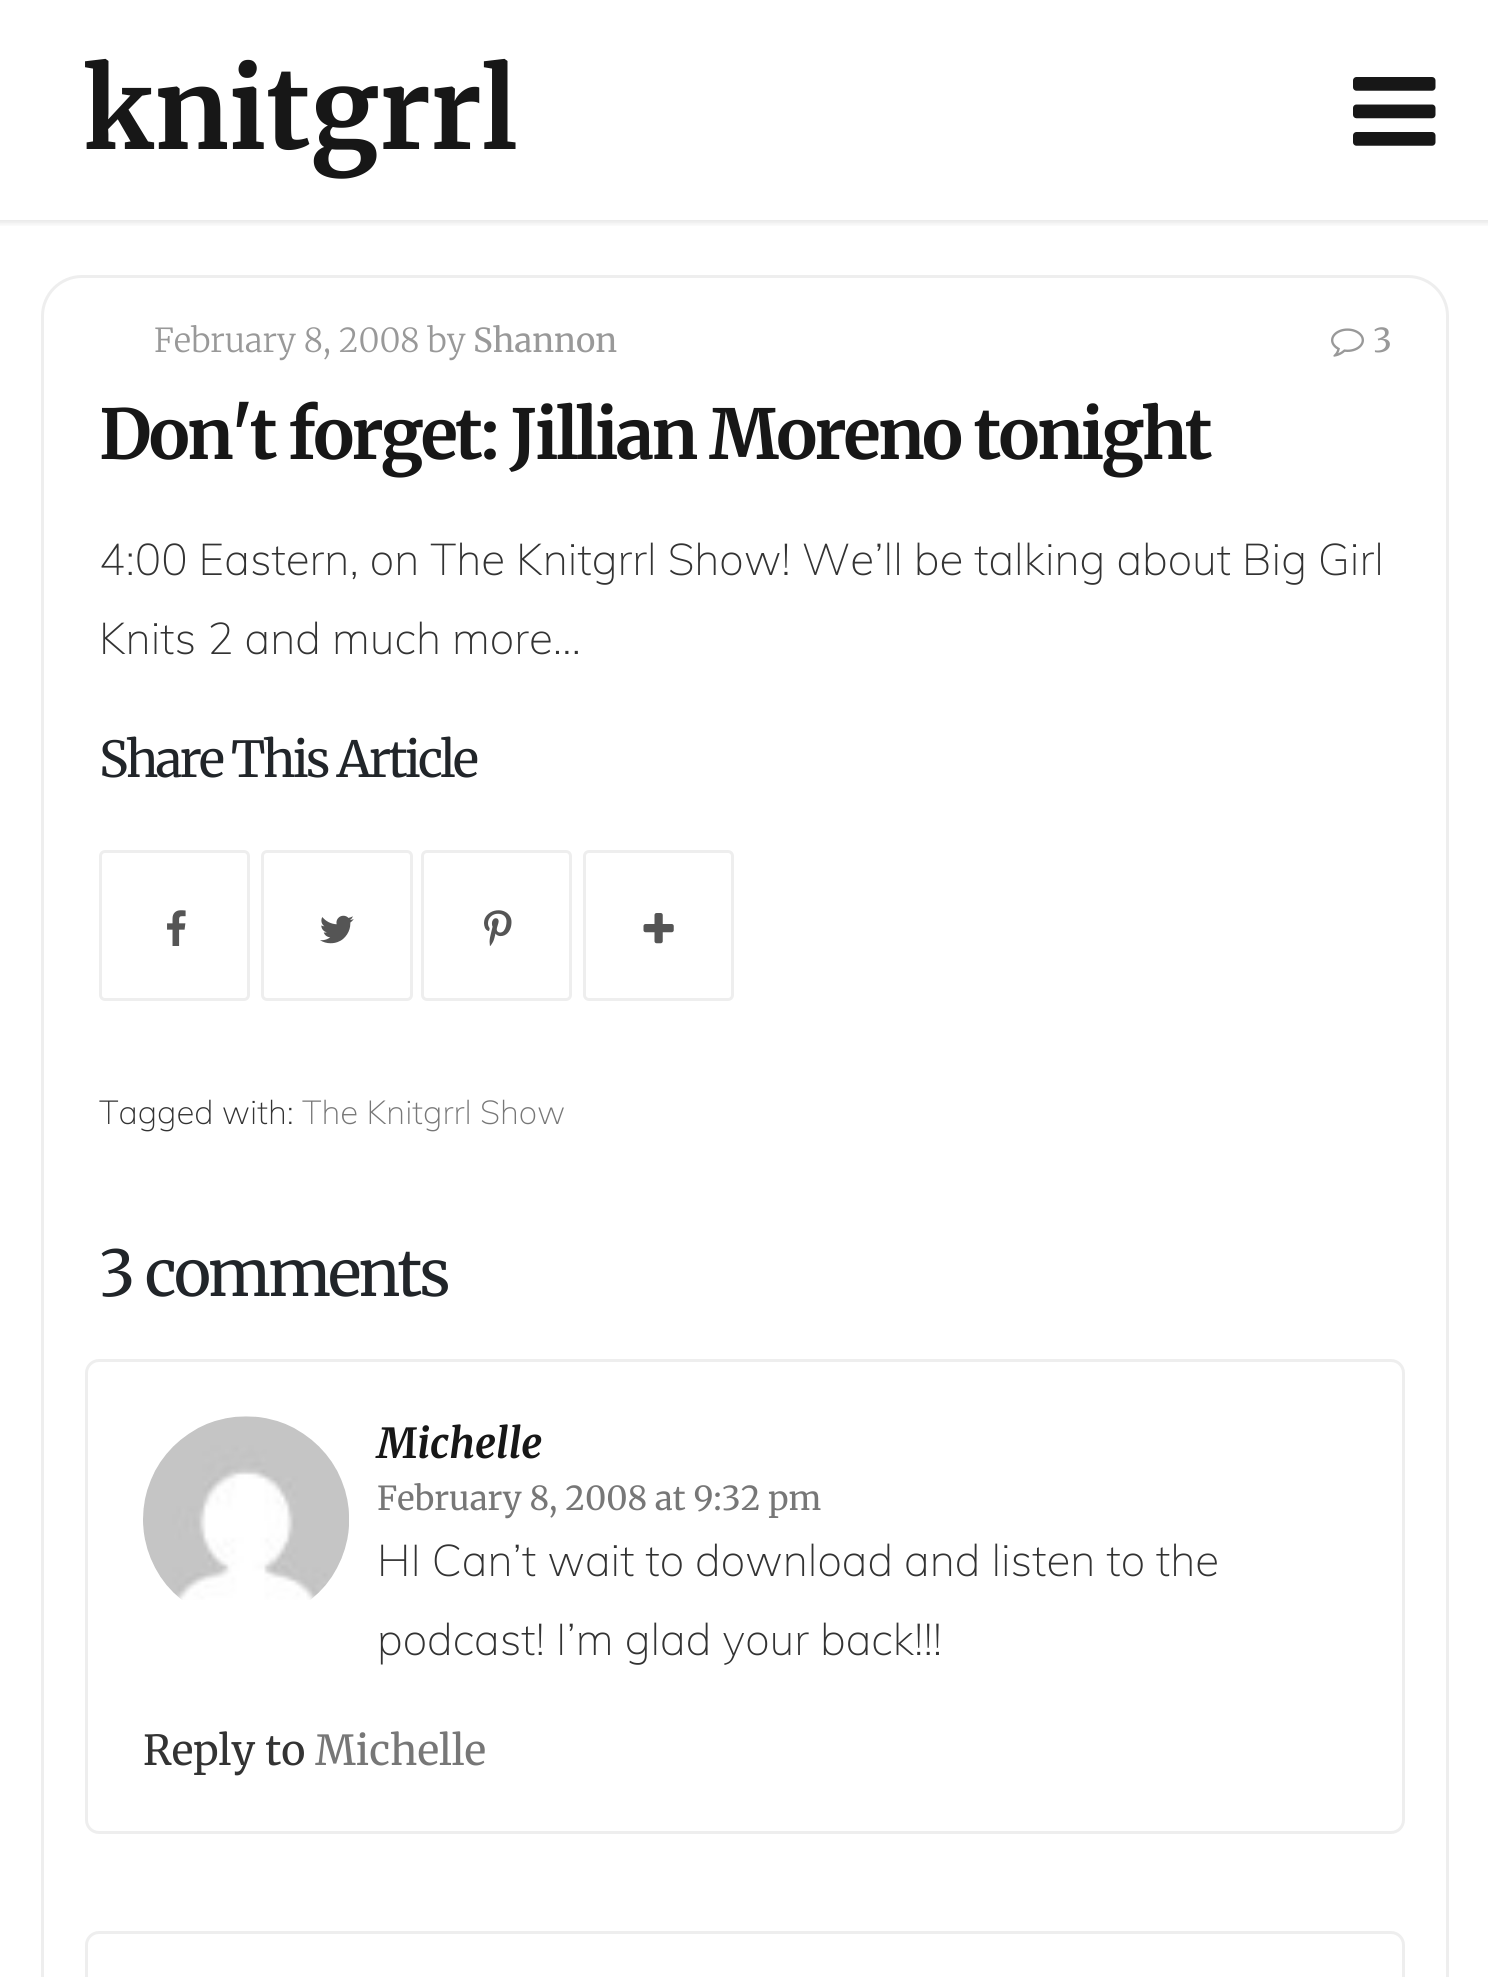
import math
import cairo


def write_spaced(ctx, x, y, s, letter, word):
	ctx.move_to(x, y)
	for ch in s:
		ctx.show_text(ch)
		ctx.rel_move_to(letter + word * (ch == ' '), 0)

def round_path(ctx, x, y, w, h, r):
	ctx.new_sub_path()
	for i, (u, v) in enumerate([(x + w - r, y + h - r), (x + r, y + h - r), (x + r, y + r), (x + w - r, y + r)]):
		ctx.arc(u, v, r, i * math.pi / 2, (i + 1) * math.pi / 2)
	ctx.close_path()

def blur_box(ctx, x, y, w, h, r, blur, alpha):
	ctx.push_group_with_content(cairo.CONTENT_ALPHA)
	ctx.set_operator(cairo.OPERATOR_SOURCE)
	for i in range(15, -16, -2):
		e = blur * i / 6
		if min(w, h) + 2 * e > 0:
			ctx.set_source_rgba(0, 0, 0, alpha * math.erfc((i - 1) / 8.5) / 2)
			round_path(ctx, x - e, y - e, w + 2 * e, h + 2 * e, max(0, min(r + e + blur * .6, min(w, h) / 2 + e)))
			ctx.fill()
	ctx.mask(ctx.pop_group())

def paste(ctx, path, x, y, w, h):
	ctx.save()
	ctx.set_source_surface(cairo.ImageSurface.create_from_png(path), x, y)
	ctx.rectangle(x, y, w, h)
	ctx.fill()
	ctx.restore()

def draw(ctx):
	ctx.set_source_rgb(1, 1, 1)
	ctx.paint()
	ctx.save()
	ctx.rectangle(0, 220, 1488, 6)
	ctx.clip()
	ctx.set_source_rgb(0, 0, 0)
	blur_box(ctx, -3, -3, 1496, 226, 0, 3, 0.1)
	ctx.restore()
	ctx.select_font_face('Merriweather', cairo.FONT_SLANT_NORMAL, cairo.FONT_WEIGHT_BOLD)
	ctx.set_font_size(110)
	ctx.set_source_rgb(0.09, 0.09, 0.09)
	ctx.move_to(83, 149)
	ctx.show_text('knitgrrl')
	paste(ctx, 'media/1.png', 1353, 77, 83, 69)
	round_path(ctx, 42.5, 276.5, 1405, 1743, 39.5)
	ctx.set_source_rgb(0.933, 0.933, 0.933)
	ctx.set_line_width(3)
	ctx.stroke()
	ctx.select_font_face('Merriweather Light')
	ctx.set_font_size(33)
	ctx.set_source_rgb(0.6, 0.6, 0.6)
	ctx.move_to(154, 352)
	ctx.show_text('February 8, 2008 by')
	ctx.select_font_face('Merriweather')
	ctx.move_to(473, 352)
	ctx.show_text('Shannon')
	paste(ctx, 'media/2.png', 1331, 328, 33, 29)
	ctx.move_to(1373, 352)
	ctx.show_text('3')
	ctx.select_font_face('Merriweather', cairo.FONT_SLANT_NORMAL, cairo.FONT_WEIGHT_BOLD)
	ctx.set_font_size(68.75)
	ctx.set_source_rgb(0.09, 0.09, 0.09)
	write_spaced(ctx, 99, 459, 'Don\'t forget: Jillian Moreno tonight', -2.75, 0)
	ctx.select_font_face('Muli ExtraLight')
	ctx.set_font_size(44)
	ctx.set_source_rgb(0.2, 0.2, 0.2)
	ctx.move_to(99, 575)
	ctx.show_text('4:00 Eastern, on The Knitgrrl Show! We’ll be talking about Big Girl')
	ctx.move_to(99, 654)
	ctx.show_text('Knits 2 and much more…')
	ctx.select_font_face('Merriweather')
	ctx.set_font_size(49.5)
	ctx.set_source_rgb(0.129, 0.145, 0.161)
	write_spaced(ctx, 99, 777, 'Share This Article', -2.75, 0)
	round_path(ctx, 100.5, 851.5, 148, 148, 4.5)
	ctx.set_source_rgb(0.933, 0.933, 0.933)
	ctx.stroke()
	paste(ctx, 'media/3.png', 167, 910, 19, 36)
	round_path(ctx, 262.5, 851.5, 149, 148, 4.5)
	ctx.stroke()
	paste(ctx, 'media/4.png', 320, 915, 34, 29)
	round_path(ctx, 422.5, 851.5, 148, 148, 4.5)
	ctx.stroke()
	paste(ctx, 'media/5.png', 484, 910, 28, 36)
	round_path(ctx, 584.5, 851.5, 148, 148, 4.5)
	ctx.stroke()
	paste(ctx, 'media/6.png', 643, 913, 31, 31)
	ctx.select_font_face('Muli ExtraLight')
	ctx.set_font_size(33)
	ctx.set_source_rgb(0.2, 0.2, 0.2)
	ctx.move_to(99, 1124)
	ctx.show_text('Tagged with:')
	ctx.set_source_rgb(0.467, 0.467, 0.467)
	ctx.move_to(302, 1124)
	ctx.show_text('The Knitgrrl Show')
	ctx.select_font_face('Merriweather')
	ctx.set_font_size(63.25)
	ctx.set_source_rgb(0.129, 0.145, 0.161)
	write_spaced(ctx, 99, 1296, '3 comments', -2.75, 0)
	round_path(ctx, 86.5, 1360.5, 1317, 472, 12.5)
	ctx.set_source_rgb(0.933, 0.933, 0.933)
	ctx.stroke()
	paste(ctx, 'media/7.png', 143, 1416, 206, 184)
	ctx.select_font_face('Merriweather', cairo.FONT_SLANT_ITALIC, cairo.FONT_WEIGHT_BOLD)
	ctx.set_font_size(41.25)
	ctx.set_source_rgb(0.09, 0.09, 0.09)
	ctx.move_to(377, 1458)
	ctx.show_text('Michelle')
	ctx.select_font_face('Merriweather')
	ctx.set_font_size(33)
	ctx.set_source_rgb(0.467, 0.467, 0.467)
	ctx.move_to(377, 1510)
	ctx.show_text('February 8, 2008 at 9:32 pm')
	ctx.select_font_face('Muli ExtraLight')
	ctx.set_font_size(44)
	ctx.set_source_rgb(0.2, 0.2, 0.2)
	ctx.move_to(377, 1576)
	ctx.show_text('HI Can’t wait to download and listen to the')
	ctx.move_to(377, 1655)
	ctx.show_text('podcast! I’m glad your back!!!')
	ctx.select_font_face('Merriweather')
	ctx.set_font_size(41.25)
	ctx.move_to(143, 1765)
	ctx.show_text('Reply to')
	ctx.set_source_rgb(0.467, 0.467, 0.467)
	ctx.move_to(315, 1765)
	ctx.show_text('Michelle')
	round_path(ctx, 86.5, 1932.5, 1317, 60, 12.5)
	ctx.set_source_rgb(0.933, 0.933, 0.933)
	ctx.stroke()


surface = cairo.ImageSurface(cairo.FORMAT_RGB24, 1488, 1977)
ctx = cairo.Context(surface)
options = cairo.FontOptions()
options.set_hint_metrics(cairo.HINT_METRICS_OFF)
options.set_hint_style(cairo.HINT_STYLE_NONE)
ctx.set_font_options(options)
ctx.set_miter_limit(4)
draw(ctx)
surface.write_to_png('image.png')
